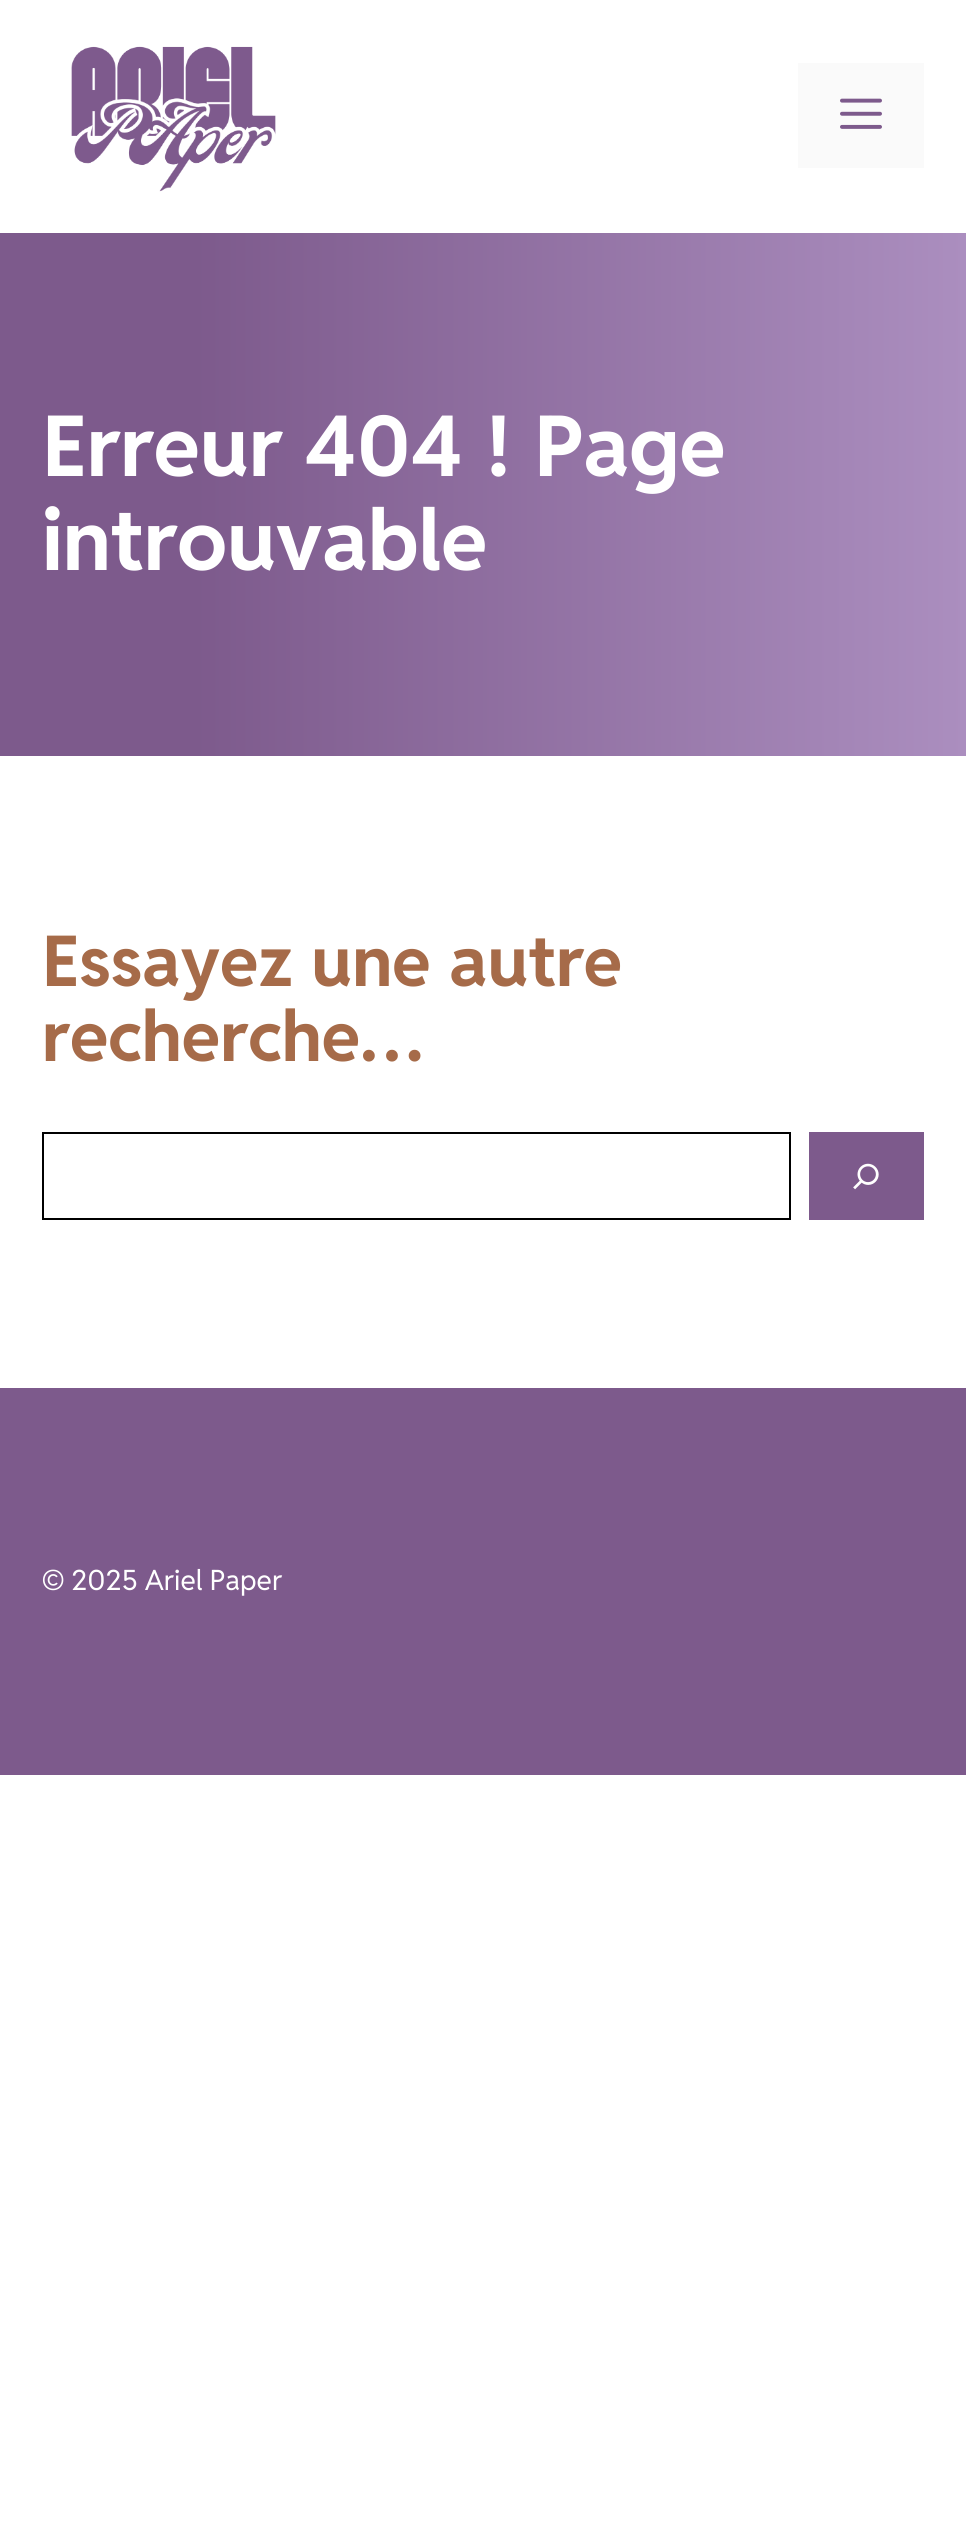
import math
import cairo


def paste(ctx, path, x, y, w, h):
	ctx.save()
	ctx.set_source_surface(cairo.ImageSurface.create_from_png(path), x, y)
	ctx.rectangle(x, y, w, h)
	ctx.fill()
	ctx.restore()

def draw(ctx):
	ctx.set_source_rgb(1, 1, 1)
	ctx.paint()
	paste(ctx, 'media/1.png', 71, 46, 205, 146)
	ctx.set_source_rgb(0.98, 0.98, 0.98)
	ctx.rectangle(798, 63, 126, 105)
	ctx.fill()
	paste(ctx, 'media/2.png', 840, 98, 42, 31)
	gradient = cairo.LinearGradient(0, 494, 966, 494)
	gradient.add_color_stop_rgba(0.2, 0.49, 0.353, 0.549, 1)
	gradient.add_color_stop_rgba(1, 0.671, 0.557, 0.749, 1)
	ctx.set_source(gradient)
	ctx.rectangle(0, 233, 966, 523)
	ctx.fill()
	ctx.select_font_face('Reddit Sans', cairo.FONT_SLANT_NORMAL, cairo.FONT_WEIGHT_BOLD)
	ctx.set_font_size(84)
	ctx.set_source_rgb(1, 1, 1)
	ctx.move_to(42, 476)
	ctx.show_text('Erreur 404 ! Page')
	ctx.move_to(42, 570)
	ctx.show_text('introuvable')
	ctx.set_font_size(70)
	ctx.set_source_rgb(0.651, 0.42, 0.286)
	ctx.move_to(42, 986)
	ctx.show_text('Essayez une autre')
	ctx.move_to(42, 1061)
	ctx.show_text('recherche…')
	ctx.rectangle(43, 1133, 747, 86)
	ctx.set_source_rgb(0, 0, 0)
	ctx.stroke()
	ctx.set_source_rgb(0.49, 0.353, 0.549)
	ctx.rectangle(809, 1132, 115, 88)
	ctx.fill()
	paste(ctx, 'media/3.png', 853, 1163, 26, 27)
	ctx.rectangle(0, 1388, 966, 387)
	ctx.fill()
	ctx.select_font_face('Reddit Sans')
	ctx.set_font_size(28)
	ctx.set_source_rgb(1, 1, 1)
	ctx.move_to(42, 1590)
	ctx.show_text('© 2025 Ariel Paper')


surface = cairo.ImageSurface(cairo.FORMAT_RGB24, 966, 2536)
ctx = cairo.Context(surface)
options = cairo.FontOptions()
options.set_hint_metrics(cairo.HINT_METRICS_OFF)
options.set_hint_style(cairo.HINT_STYLE_NONE)
ctx.set_font_options(options)
ctx.set_miter_limit(4)
draw(ctx)
surface.write_to_png('image.png')
